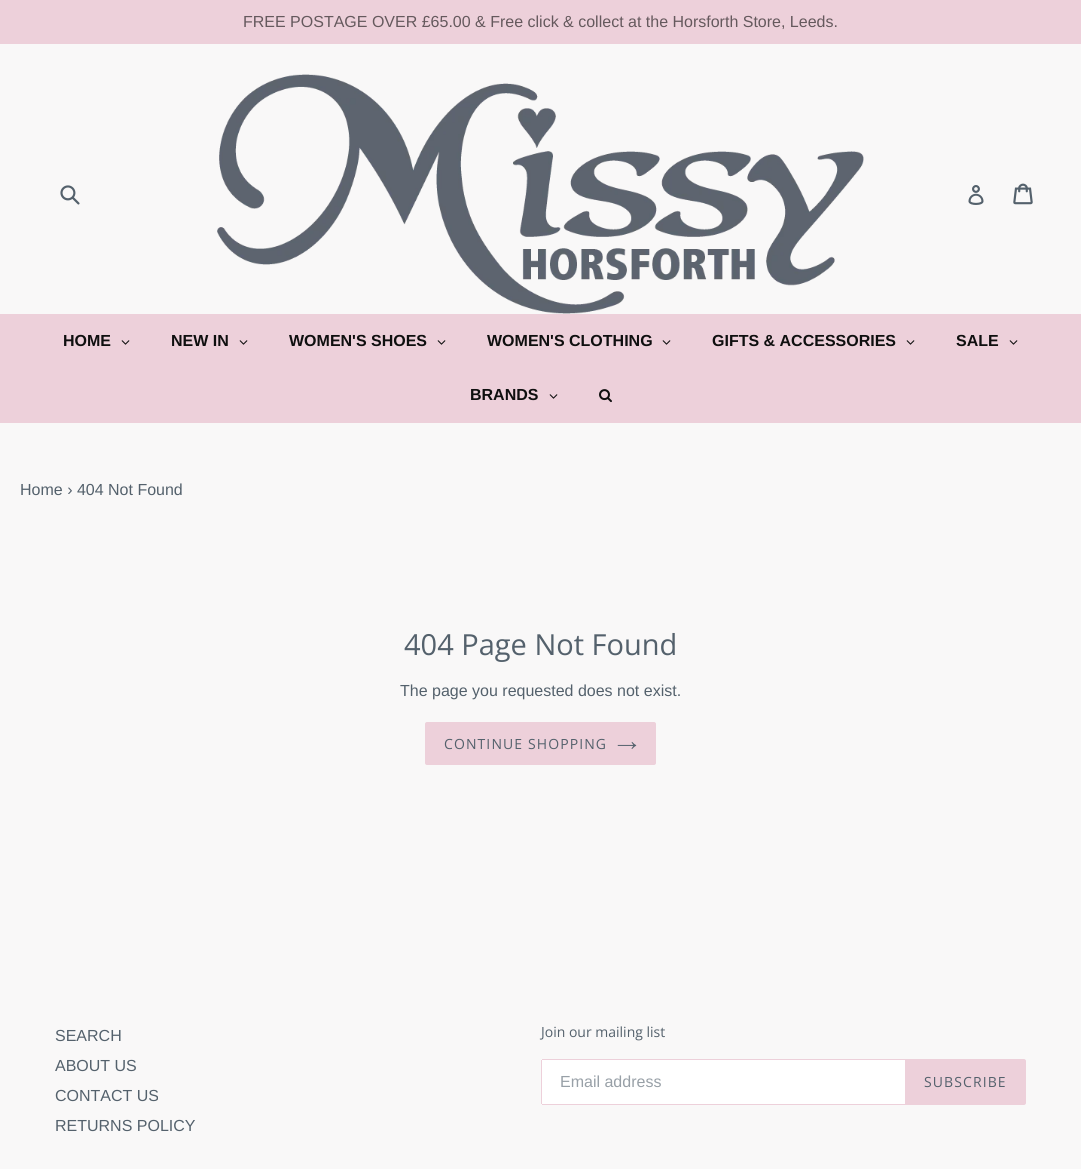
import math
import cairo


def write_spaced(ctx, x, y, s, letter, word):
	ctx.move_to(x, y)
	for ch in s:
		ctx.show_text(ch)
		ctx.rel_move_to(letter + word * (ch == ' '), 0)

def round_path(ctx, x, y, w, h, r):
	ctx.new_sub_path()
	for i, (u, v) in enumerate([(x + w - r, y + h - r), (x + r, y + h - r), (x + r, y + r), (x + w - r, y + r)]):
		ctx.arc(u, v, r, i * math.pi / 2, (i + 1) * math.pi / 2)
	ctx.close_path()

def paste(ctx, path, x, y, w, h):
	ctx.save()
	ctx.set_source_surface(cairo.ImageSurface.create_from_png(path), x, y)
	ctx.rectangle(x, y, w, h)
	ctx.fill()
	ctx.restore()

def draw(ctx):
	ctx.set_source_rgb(0.973, 0.969, 0.969)
	ctx.paint()
	ctx.set_source_rgb(0.929, 0.816, 0.855)
	ctx.rectangle(0, 0, 1081, 44)
	ctx.fill()
	ctx.select_font_face('Liberation Sans')
	ctx.set_font_size(16)
	ctx.set_source_rgb(0.396, 0.349, 0.365)
	ctx.move_to(243, 27)
	ctx.show_text('FREE POSTAGE OVER £65.00 & Free click & collect at the Horsforth Store, Leeds.')
	paste(ctx, 'media/1.png', 60, 185, 20, 20)
	paste(ctx, 'media/2.png', 217, 74, 647, 240)
	paste(ctx, 'media/3.png', 968, 185, 16, 20)
	paste(ctx, 'media/4.png', 1013, 183, 20, 22)
	ctx.set_source_rgb(0.929, 0.816, 0.855)
	ctx.rectangle(0, 314, 1081, 109)
	ctx.fill()
	ctx.select_font_face('Liberation Sans', cairo.FONT_SLANT_NORMAL, cairo.FONT_WEIGHT_BOLD)
	ctx.set_source_rgb(0.059, 0.059, 0.059)
	ctx.move_to(63, 346)
	ctx.show_text('HOME')
	paste(ctx, 'media/5.png', 121, 340, 9, 5)
	ctx.move_to(171, 346)
	ctx.show_text('NEW IN')
	paste(ctx, 'media/5.png', 239, 340, 9, 5)
	ctx.move_to(289, 346)
	ctx.show_text('WOMEN\'S SHOES')
	paste(ctx, 'media/5.png', 437, 340, 9, 5)
	ctx.move_to(487, 346)
	ctx.show_text('WOMEN\'S CLOTHING')
	paste(ctx, 'media/5.png', 662, 340, 9, 5)
	ctx.move_to(712, 346)
	ctx.show_text('GIFTS & ACCESSORIES')
	paste(ctx, 'media/5.png', 906, 340, 9, 5)
	ctx.move_to(956, 346)
	ctx.show_text('SALE')
	paste(ctx, 'media/5.png', 1009, 340, 9, 5)
	ctx.move_to(470, 400)
	ctx.show_text('BRANDS')
	paste(ctx, 'media/5.png', 549, 394, 9, 5)
	paste(ctx, 'media/6.png', 599, 389, 13, 14)
	ctx.select_font_face('Liberation Sans')
	ctx.set_source_rgb(0.329, 0.38, 0.424)
	ctx.move_to(20, 495)
	ctx.show_text('Home › 404 Not Found')
	ctx.select_font_face('Open Sans')
	ctx.set_font_size(29)
	ctx.move_to(404, 655)
	ctx.show_text('404 Page Not Found')
	ctx.select_font_face('Liberation Sans')
	ctx.set_font_size(16)
	ctx.move_to(400, 696)
	ctx.show_text('The page you requested does not exist.')
	ctx.set_source_rgb(0.929, 0.816, 0.855)
	round_path(ctx, 425, 722, 231, 43, 2)
	ctx.fill()
	ctx.select_font_face('Open Sans')
	ctx.set_font_size(14)
	ctx.set_source_rgb(0.329, 0.38, 0.424)
	write_spaced(ctx, 444, 749, 'CONTINUE SHOPPING', 1.1, 0)
	paste(ctx, 'media/7.png', 617, 741, 20, 8)
	ctx.select_font_face('Liberation Sans')
	ctx.set_font_size(16)
	for x, y, s in [
		(55, 1041, 'SEARCH'),
		(55, 1071, 'ABOUT US'),
		(55, 1101, 'CONTACT US'),
		(55, 1131, 'RETURNS POLICY'),
	]:
		ctx.move_to(x, y)
		ctx.show_text(s)
	ctx.select_font_face('Open Sans')
	ctx.set_font_size(14)
	ctx.move_to(541, 1037)
	ctx.show_text('Join our mailing list')
	ctx.set_source_rgb(1, 1, 1)
	ctx.new_path()
	ctx.move_to(543, 1059)
	ctx.line_to(905, 1059)
	ctx.line_to(905, 1105)
	ctx.line_to(543, 1105)
	ctx.curve_to(542, 1105, 541, 1104, 541, 1103)
	ctx.line_to(541, 1061)
	ctx.curve_to(541, 1060, 542, 1059, 543, 1059)
	ctx.close_path()
	ctx.fill()
	ctx.set_source_rgb(0.929, 0.816, 0.855)
	ctx.rectangle(542, 1059, 363, 1)
	ctx.rectangle(542, 1104, 363, 1)
	ctx.rectangle(541, 1060, 1, 44)
	ctx.fill()
	ctx.select_font_face('Liberation Sans')
	ctx.set_font_size(16)
	ctx.set_source_rgb(0.596, 0.627, 0.655)
	ctx.move_to(560, 1087)
	ctx.show_text('Email address')
	ctx.set_source_rgb(0.929, 0.816, 0.855)
	ctx.new_path()
	ctx.move_to(905, 1059)
	ctx.line_to(1024, 1059)
	ctx.curve_to(1025, 1059, 1026, 1060, 1026, 1061)
	ctx.line_to(1026, 1103)
	ctx.curve_to(1026, 1104, 1025, 1105, 1024, 1105)
	ctx.line_to(905, 1105)
	ctx.close_path()
	ctx.fill()
	ctx.select_font_face('Open Sans')
	ctx.set_font_size(14)
	ctx.set_source_rgb(0.329, 0.38, 0.424)
	write_spaced(ctx, 924, 1087, 'SUBSCRIBE', 1.1, 0)


surface = cairo.ImageSurface(cairo.FORMAT_RGB24, 1081, 1169)
ctx = cairo.Context(surface)
options = cairo.FontOptions()
options.set_hint_metrics(cairo.HINT_METRICS_OFF)
options.set_hint_style(cairo.HINT_STYLE_NONE)
ctx.set_font_options(options)
ctx.set_miter_limit(4)
draw(ctx)
surface.write_to_png('image.png')
